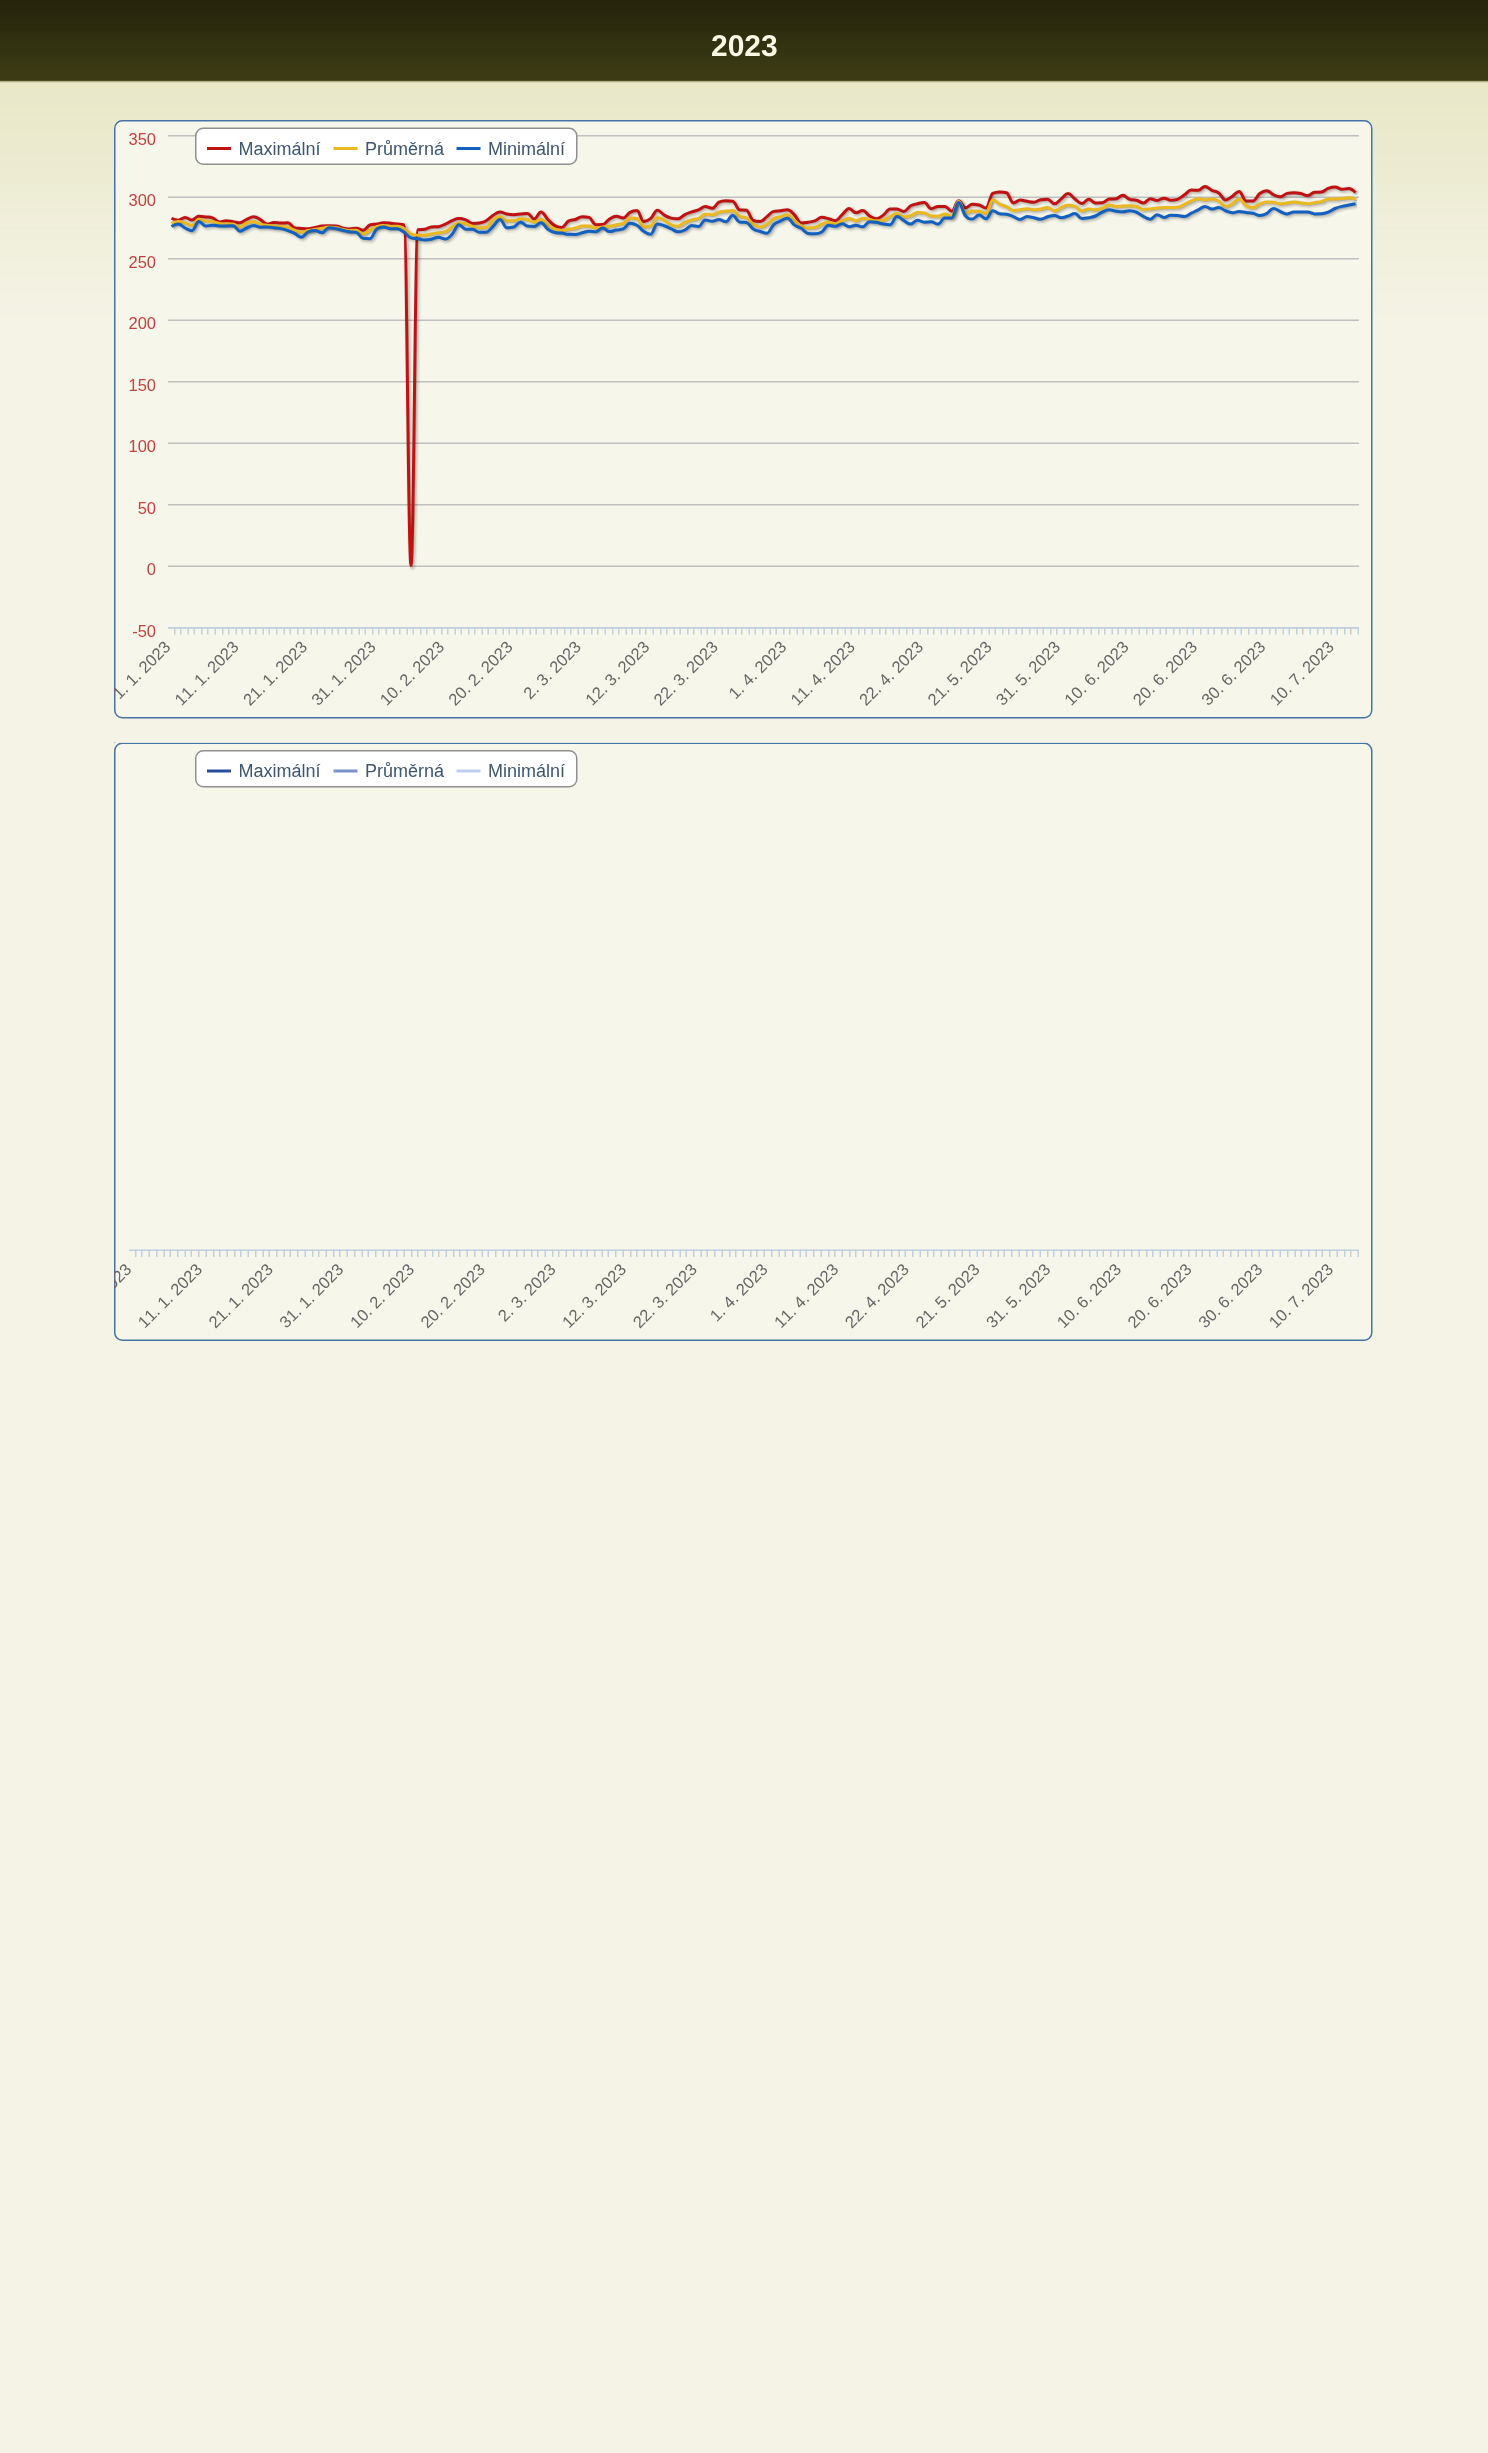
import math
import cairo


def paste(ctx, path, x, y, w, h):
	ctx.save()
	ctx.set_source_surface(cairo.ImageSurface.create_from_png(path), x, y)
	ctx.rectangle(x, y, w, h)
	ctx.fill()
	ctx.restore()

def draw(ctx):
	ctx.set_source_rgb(0.957, 0.953, 0.898)
	ctx.paint()
	paste(ctx, 'media/1.png', 0, 0, 1488, 743)
	ctx.select_font_face('Liberation Sans', cairo.FONT_SLANT_NORMAL, cairo.FONT_WEIGHT_BOLD)
	ctx.set_font_size(30)
	ctx.set_source_rgb(0.976, 0.973, 0.902)
	ctx.move_to(711, 56)
	ctx.show_text('2023')
	paste(ctx, 'media/2.png', 114, 120, 1259, 599)
	paste(ctx, 'media/3.png', 114, 742, 1259, 599)


surface = cairo.ImageSurface(cairo.FORMAT_RGB24, 1488, 2453)
ctx = cairo.Context(surface)
options = cairo.FontOptions()
options.set_hint_metrics(cairo.HINT_METRICS_OFF)
options.set_hint_style(cairo.HINT_STYLE_NONE)
ctx.set_font_options(options)
ctx.set_miter_limit(4)
draw(ctx)
surface.write_to_png('image.png')
